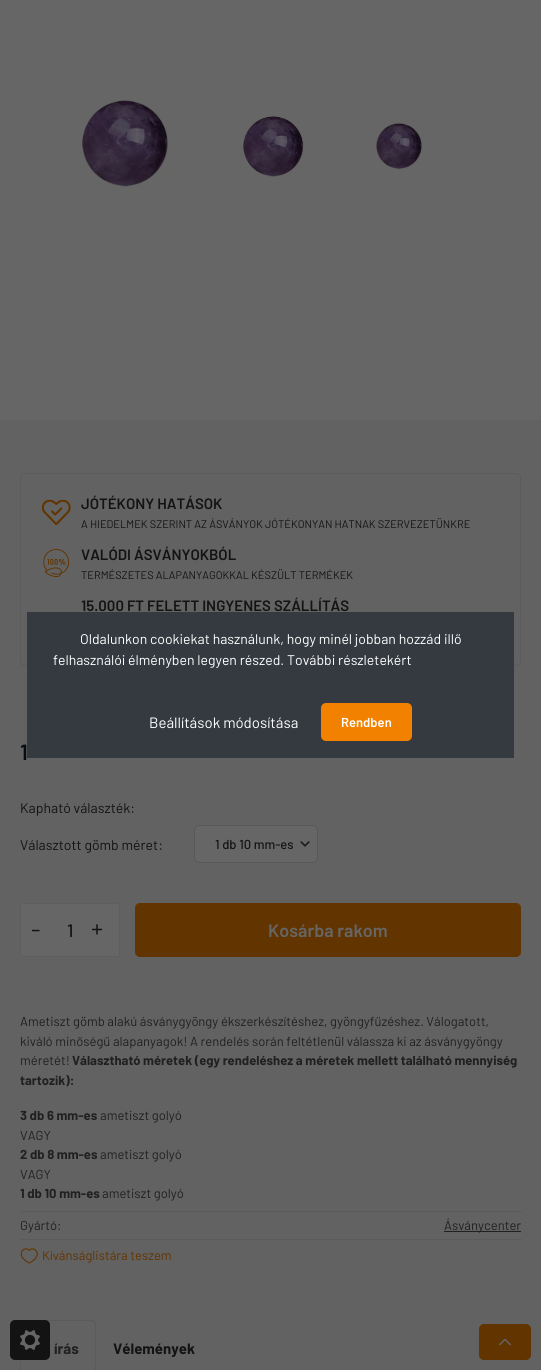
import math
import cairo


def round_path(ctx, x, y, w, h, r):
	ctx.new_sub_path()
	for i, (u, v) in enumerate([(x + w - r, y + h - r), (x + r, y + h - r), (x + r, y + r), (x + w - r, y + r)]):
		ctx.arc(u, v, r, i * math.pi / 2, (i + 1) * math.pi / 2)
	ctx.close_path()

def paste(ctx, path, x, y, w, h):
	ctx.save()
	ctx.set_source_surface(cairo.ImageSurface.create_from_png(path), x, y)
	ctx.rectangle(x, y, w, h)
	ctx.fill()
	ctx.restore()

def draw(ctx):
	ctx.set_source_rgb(0.384, 0.384, 0.384)
	ctx.paint()
	paste(ctx, 'media/1.png', 0, 0, 541, 420)
	round_path(ctx, 20.5, 473.5, 500, 192, 4.5)
	ctx.set_source_rgb(0.357, 0.357, 0.369)
	ctx.set_line_width(1)
	ctx.stroke()
	paste(ctx, 'media/2.png', 41, 499, 30, 26)
	ctx.select_font_face('Barlow SemiBold')
	ctx.set_font_size(15)
	ctx.set_source_rgb(0.075, 0.078, 0.078)
	ctx.move_to(81, 509)
	ctx.show_text('JÓTÉKONY HATÁSOK')
	ctx.select_font_face('Barlow')
	ctx.set_font_size(11)
	ctx.move_to(81, 528)
	ctx.show_text('A HIEDELMEK SZERINT AZ ÁSVÁNYOK JÓTÉKONYAN HATNAK SZERVEZETÜNKRE')
	paste(ctx, 'media/3.png', 43, 549, 27, 28)
	ctx.select_font_face('Barlow SemiBold')
	ctx.set_font_size(15)
	ctx.move_to(81, 560)
	ctx.show_text('VALÓDI ÁSVÁNYOKBÓL')
	ctx.select_font_face('Barlow')
	ctx.set_font_size(11)
	ctx.move_to(81, 579)
	ctx.show_text('TERMÉSZETES ALAPANYAGOKKAL KÉSZÜLT TERMÉKEK')
	ctx.select_font_face('Barlow SemiBold')
	ctx.set_font_size(15)
	ctx.move_to(81, 611)
	ctx.show_text('15.000 FT FELETT INGYENES SZÁLLÍTÁS')
	ctx.set_font_size(22)
	ctx.set_source_rgb(0.031, 0.047, 0.059)
	ctx.move_to(20, 760)
	ctx.show_text('1')
	ctx.select_font_face('Barlow')
	ctx.set_font_size(14)
	ctx.set_source_rgb(0.075, 0.078, 0.078)
	ctx.move_to(20, 813)
	ctx.show_text('Kapható választék:')
	ctx.move_to(20, 850)
	ctx.show_text('Választott gömb méret:')
	ctx.set_source_rgb(0.4, 0.4, 0.4)
	round_path(ctx, 194, 825, 124, 38, 5)
	ctx.fill()
	paste(ctx, 'media/4.png', 300, 841, 10, 6)
	round_path(ctx, 194.5, 825.5, 123, 37, 4.5)
	ctx.set_source_rgb(0.345, 0.345, 0.353)
	ctx.stroke()
	ctx.select_font_face('Barlow Medium')
	ctx.set_font_size(13)
	ctx.set_source_rgb(0.075, 0.078, 0.078)
	ctx.move_to(215, 849)
	ctx.show_text('1 db 10 mm-es')
	ctx.set_source_rgb(0.4, 0.4, 0.4)
	round_path(ctx, 20.5, 903.5, 99, 53, 2.5)
	ctx.fill_preserve()
	ctx.set_source_rgb(0.369, 0.369, 0.384)
	ctx.stroke()
	ctx.select_font_face('Barlow')
	ctx.set_font_size(24)
	ctx.set_source_rgb(0.075, 0.078, 0.078)
	ctx.move_to(31, 938)
	ctx.show_text('-')
	ctx.select_font_face('Barlow Medium')
	ctx.set_font_size(18)
	ctx.move_to(67, 937)
	ctx.show_text('1')
	ctx.select_font_face('Barlow')
	ctx.set_font_size(24)
	ctx.move_to(91, 937)
	ctx.show_text('+')
	ctx.set_source_rgb(0.38, 0.204, 0)
	round_path(ctx, 135, 903, 386, 54, 5)
	ctx.fill()
	ctx.select_font_face('Barlow SemiBold')
	ctx.set_font_size(18)
	ctx.set_source_rgb(0.4, 0.4, 0.4)
	ctx.move_to(268, 937)
	ctx.show_text('Kosárba rakom')
	ctx.select_font_face('Barlow')
	ctx.set_font_size(13)
	ctx.set_source_rgb(0.125, 0.125, 0.129)
	for x, y, s in [
		(20, 1026, 'Ametiszt gömb alakú ásványgyöngy ékszerkészítéshez, gyöngyfűzéshez. Válogatott,'),
		(20, 1046, 'kiváló minőségű alapanyagok! A rendelés során feltétlenül válassza ki az ásványgyöngy'),
		(20, 1065, 'méretét!'),
	]:
		ctx.move_to(x, y)
		ctx.show_text(s)
	ctx.select_font_face('Barlow', cairo.FONT_SLANT_NORMAL, cairo.FONT_WEIGHT_BOLD)
	for x, y, s in [
		(72, 1065, 'Választható méretek (egy rendeléshez a méretek mellett található mennyiség'),
		(20, 1085, 'tartozik):'),
		(20, 1120, '3 db 6 mm-es'),
	]:
		ctx.move_to(x, y)
		ctx.show_text(s)
	ctx.select_font_face('Barlow')
	ctx.move_to(100, 1120)
	ctx.show_text('ametiszt golyó')
	ctx.move_to(20, 1140)
	ctx.show_text('VAGY')
	ctx.select_font_face('Barlow', cairo.FONT_SLANT_NORMAL, cairo.FONT_WEIGHT_BOLD)
	ctx.move_to(20, 1159)
	ctx.show_text('2 db 8 mm-es')
	ctx.select_font_face('Barlow')
	ctx.move_to(100, 1159)
	ctx.show_text('ametiszt golyó')
	ctx.move_to(20, 1179)
	ctx.show_text('VAGY')
	ctx.select_font_face('Barlow', cairo.FONT_SLANT_NORMAL, cairo.FONT_WEIGHT_BOLD)
	ctx.move_to(20, 1198)
	ctx.show_text('1 db 10 mm-es')
	ctx.select_font_face('Barlow')
	ctx.move_to(102, 1198)
	ctx.show_text('ametiszt golyó')
	ctx.move_to(20, 1230)
	ctx.show_text('Gyártó:')
	ctx.set_source_rgb(0.357, 0.357, 0.369)
	ctx.rectangle(20, 1211, 502, 1)
	ctx.fill()
	ctx.set_source_rgb(0.125, 0.125, 0.129)
	ctx.rectangle(444, 1231, 77, 1)
	ctx.fill()
	ctx.move_to(444, 1230)
	ctx.show_text('Ásványcenter')
	ctx.set_source_rgb(0.357, 0.357, 0.369)
	ctx.rectangle(20, 1239, 502, 1)
	ctx.fill()
	paste(ctx, 'media/5.png', 20, 1248, 18, 16)
	ctx.set_source_rgb(0.38, 0.204, 0)
	ctx.move_to(42, 1260)
	ctx.show_text('Kívánságlistára teszem')
	ctx.set_source_rgb(0.357, 0.357, 0.369)
	ctx.new_path()
	ctx.move_to(25, 1320)
	ctx.curve_to(24, 1320, 22, 1320, 21, 1321)
	ctx.line_to(22, 1322)
	ctx.line_to(25, 1321)
	ctx.line_to(91, 1321)
	ctx.line_to(94, 1322)
	ctx.line_to(95, 1321)
	ctx.curve_to(94, 1320, 92, 1320, 91, 1320)
	ctx.close_path()
	ctx.fill()
	ctx.new_path()
	ctx.move_to(96, 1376)
	ctx.line_to(96, 1325)
	ctx.curve_to(96, 1324, 96, 1322, 95, 1321)
	ctx.line_to(94, 1322)
	ctx.line_to(95, 1325)
	ctx.line_to(95, 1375)
	ctx.close_path()
	ctx.fill()
	ctx.new_path()
	ctx.move_to(20, 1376)
	ctx.line_to(21, 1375)
	ctx.line_to(21, 1325)
	ctx.line_to(22, 1322)
	ctx.line_to(21, 1321)
	ctx.curve_to(20, 1322, 20, 1324, 20, 1325)
	ctx.close_path()
	ctx.fill()
	ctx.select_font_face('Barlow', cairo.FONT_SLANT_NORMAL, cairo.FONT_WEIGHT_BOLD)
	ctx.set_font_size(15)
	ctx.set_source_rgb(0.125, 0.125, 0.129)
	ctx.move_to(54, 1354)
	ctx.show_text('írás')
	ctx.set_source_rgb(0.075, 0.078, 0.078)
	ctx.move_to(113, 1354)
	ctx.show_text('Vélemények')
	ctx.set_source_rgb(0.38, 0.204, 0)
	round_path(ctx, 479, 1324, 52, 36, 5)
	ctx.fill()
	paste(ctx, 'media/6.png', 499, 1338, 12, 8)
	ctx.set_source_rgb(0.204, 0.227, 0.251)
	ctx.rectangle(27, 612, 487, 146)
	ctx.fill()
	ctx.select_font_face('Barlow')
	ctx.set_font_size(14)
	ctx.set_source_rgb(1, 1, 1)
	ctx.move_to(80, 644)
	ctx.show_text('Oldalunkon cookiekat használunk, hogy minél jobban hozzád illő')
	ctx.move_to(53, 665)
	ctx.show_text('felhasználói élményben legyen részed. További részletekért')
	ctx.set_font_size(15)
	ctx.move_to(149, 728)
	ctx.show_text('Beállítások módosítása')
	ctx.set_source_rgb(0.949, 0.506, 0)
	round_path(ctx, 321, 703, 91, 38, 5)
	ctx.fill()
	ctx.select_font_face('Barlow SemiBold')
	ctx.set_font_size(13)
	ctx.set_source_rgb(1, 1, 1)
	ctx.move_to(341, 727)
	ctx.show_text('Rendben')
	ctx.set_source_rgb(0.075, 0.078, 0.078)
	round_path(ctx, 10, 1320, 40, 40, 5)
	ctx.fill()
	paste(ctx, 'media/7.png', 20, 1330, 20, 20)


surface = cairo.ImageSurface(cairo.FORMAT_RGB24, 541, 1370)
ctx = cairo.Context(surface)
options = cairo.FontOptions()
options.set_hint_metrics(cairo.HINT_METRICS_OFF)
options.set_hint_style(cairo.HINT_STYLE_NONE)
ctx.set_font_options(options)
ctx.set_miter_limit(4)
draw(ctx)
surface.write_to_png('image.png')
